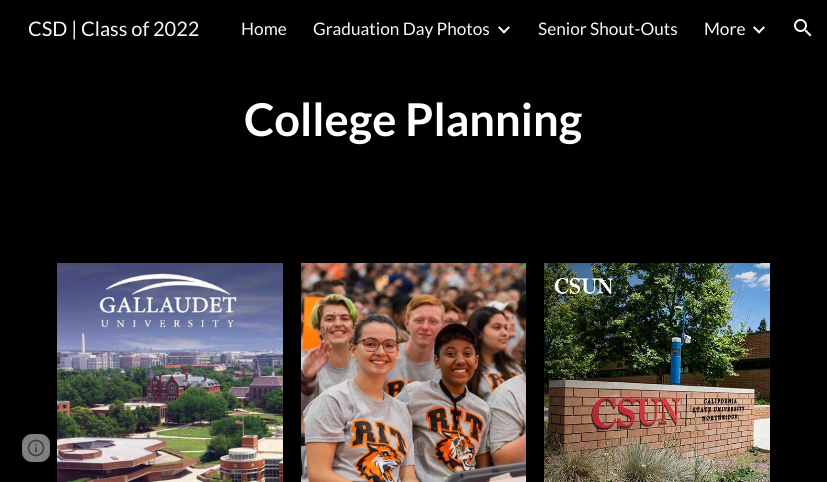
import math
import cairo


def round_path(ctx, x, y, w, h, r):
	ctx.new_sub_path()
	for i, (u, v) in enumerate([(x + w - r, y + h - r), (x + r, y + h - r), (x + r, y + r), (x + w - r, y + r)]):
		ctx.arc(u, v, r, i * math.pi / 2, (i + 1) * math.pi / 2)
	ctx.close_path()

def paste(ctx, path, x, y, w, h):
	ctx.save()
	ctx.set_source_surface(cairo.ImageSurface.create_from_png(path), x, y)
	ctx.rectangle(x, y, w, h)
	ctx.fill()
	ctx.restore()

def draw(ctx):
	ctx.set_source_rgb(0, 0, 0)
	ctx.paint()
	ctx.select_font_face('Lato')
	ctx.set_font_size(20)
	ctx.set_source_rgb(0.976, 0.976, 0.976)
	ctx.move_to(28, 36)
	ctx.show_text('CSD | Class of 2022')
	ctx.set_font_size(17.25)
	ctx.move_to(241, 35)
	ctx.show_text('Home')
	ctx.move_to(313, 35)
	ctx.show_text('Graduation Day Photos')
	paste(ctx, 'media/1.png', 498, 26, 12, 8)
	ctx.move_to(538, 35)
	ctx.show_text('Senior Shout-Outs')
	ctx.move_to(704, 35)
	ctx.show_text('More')
	paste(ctx, 'media/2.png', 753, 26, 12, 8)
	paste(ctx, 'media/3.png', 794, 19, 18, 18)
	ctx.select_font_face('Lato', cairo.FONT_SLANT_NORMAL, cairo.FONT_WEIGHT_BOLD)
	ctx.set_font_size(45.25)
	ctx.set_source_rgb(1, 1, 1)
	ctx.move_to(244, 136)
	ctx.show_text('College Planning')
	paste(ctx, 'media/4.png', 57, 263, 226, 219)
	paste(ctx, 'media/5.png', 301, 263, 225, 219)
	paste(ctx, 'media/6.png', 544, 263, 226, 219)
	ctx.set_source_rgb(0.502, 0.502, 0.502)
	round_path(ctx, 22, 434, 28, 28, 10)
	ctx.fill()
	paste(ctx, 'media/7.png', 27, 439, 18, 18)


surface = cairo.ImageSurface(cairo.FORMAT_RGB24, 827, 482)
ctx = cairo.Context(surface)
options = cairo.FontOptions()
options.set_hint_metrics(cairo.HINT_METRICS_OFF)
options.set_hint_style(cairo.HINT_STYLE_NONE)
ctx.set_font_options(options)
ctx.set_miter_limit(4)
draw(ctx)
surface.write_to_png('image.png')
